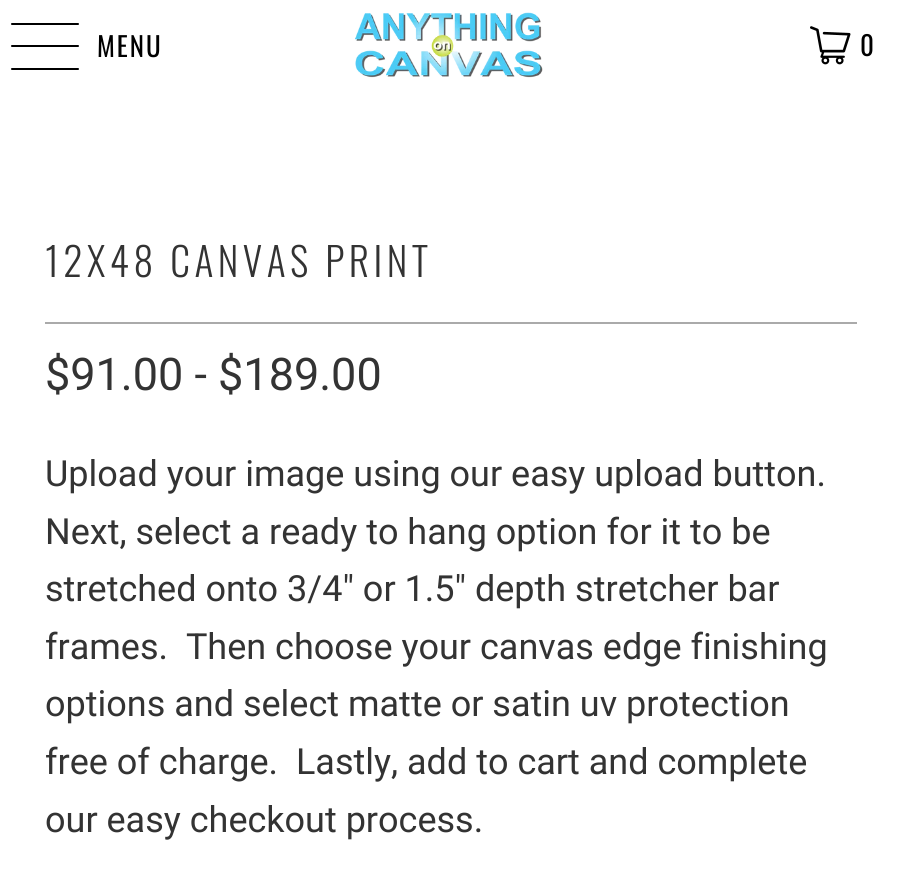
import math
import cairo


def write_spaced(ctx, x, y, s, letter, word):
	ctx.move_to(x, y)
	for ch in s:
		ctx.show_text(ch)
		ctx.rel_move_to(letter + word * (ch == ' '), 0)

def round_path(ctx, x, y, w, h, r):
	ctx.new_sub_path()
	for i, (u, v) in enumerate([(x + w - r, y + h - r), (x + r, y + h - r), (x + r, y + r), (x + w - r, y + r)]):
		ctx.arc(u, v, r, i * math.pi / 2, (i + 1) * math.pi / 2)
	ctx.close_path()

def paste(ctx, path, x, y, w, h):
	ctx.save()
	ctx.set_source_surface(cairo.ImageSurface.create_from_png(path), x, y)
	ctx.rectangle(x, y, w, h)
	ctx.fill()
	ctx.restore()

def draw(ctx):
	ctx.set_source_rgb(1, 1, 1)
	ctx.paint()
	ctx.set_source_rgb(0, 0, 0)
	round_path(ctx, 11, 23, 68, 2, 1)
	ctx.fill()
	round_path(ctx, 11, 45, 68, 2, 1)
	ctx.fill()
	round_path(ctx, 11, 68, 68, 2, 1)
	ctx.fill()
	ctx.select_font_face('Oswald')
	ctx.set_font_size(27)
	write_spaced(ctx, 97, 57, 'MENU', 2, 0)
	paste(ctx, 'media/1.png', 355, 12, 188, 66)
	paste(ctx, 'media/2.png', 810, 26, 41, 39)
	write_spaced(ctx, 860, 56, '0', 2, 0)
	ctx.select_font_face('Oswald Light')
	ctx.set_font_size(39.5)
	ctx.set_source_rgb(0.2, 0.2, 0.2)
	write_spaced(ctx, 45, 277, '12X48 CANVAS PRINT', 4.5, 0)
	ctx.set_source_rgb(0.667, 0.667, 0.667)
	ctx.rectangle(45, 322, 812, 2)
	ctx.fill()
	ctx.select_font_face('Roboto')
	ctx.set_font_size(45)
	ctx.set_source_rgb(0.2, 0.2, 0.2)
	ctx.move_to(45, 390)
	ctx.show_text('$91.00 - $189.00')
	ctx.set_font_size(36)
	for x, y, s in [
		(45, 486, 'Upload your image using our easy upload button.'),
		(45, 544, 'Next, select a ready to hang option for it to be'),
		(45, 601, 'stretched onto 3/4" or 1.5" depth stretcher bar'),
		(45, 659, 'frames.  Then choose your canvas edge finishing'),
		(45, 716, 'options and select matte or satin uv protection'),
		(45, 774, 'free of charge.  Lastly, add to cart and complete'),
		(45, 832, 'our easy checkout process.'),
	]:
		ctx.move_to(x, y)
		ctx.show_text(s)


surface = cairo.ImageSurface(cairo.FORMAT_RGB24, 902, 878)
ctx = cairo.Context(surface)
options = cairo.FontOptions()
options.set_hint_metrics(cairo.HINT_METRICS_OFF)
options.set_hint_style(cairo.HINT_STYLE_NONE)
ctx.set_font_options(options)
ctx.set_miter_limit(4)
draw(ctx)
surface.write_to_png('image.png')
